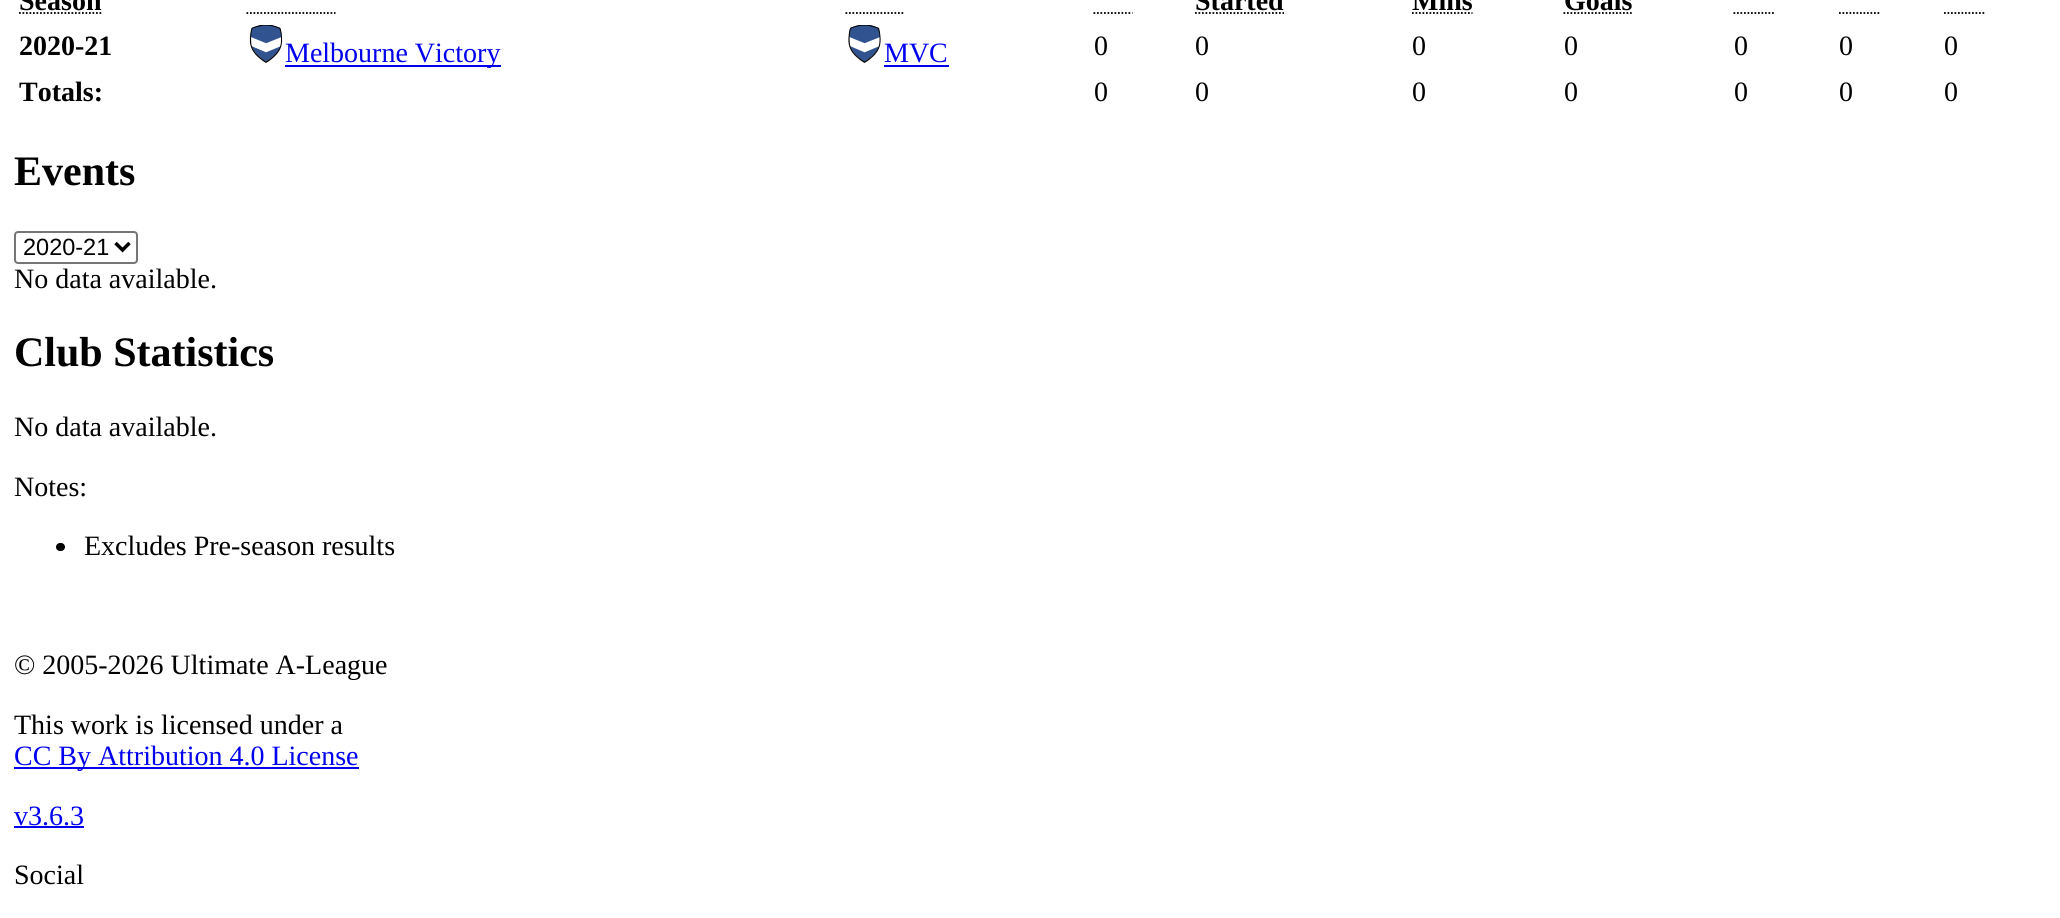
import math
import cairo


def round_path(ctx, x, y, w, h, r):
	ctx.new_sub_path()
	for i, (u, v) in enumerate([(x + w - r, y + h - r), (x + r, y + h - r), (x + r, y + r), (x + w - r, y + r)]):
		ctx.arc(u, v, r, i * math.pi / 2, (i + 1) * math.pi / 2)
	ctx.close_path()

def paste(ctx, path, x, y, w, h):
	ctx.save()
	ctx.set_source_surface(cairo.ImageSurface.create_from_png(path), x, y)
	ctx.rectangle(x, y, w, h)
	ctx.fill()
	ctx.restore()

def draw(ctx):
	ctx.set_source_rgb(1, 1, 1)
	ctx.paint()
	ctx.select_font_face('Liberation Serif', cairo.FONT_SLANT_NORMAL, cairo.FONT_WEIGHT_BOLD)
	ctx.set_font_size(28)
	ctx.set_source_rgb(0, 0, 0)
	ctx.move_to(19, 10)
	ctx.show_text('Season')
	ctx.new_path()
	ctx.move_to(19, 13)
	ctx.line_to(101.5, 13)
	ctx.set_line_width(1.8)
	ctx.set_dash([1.75, 1.75])
	ctx.stroke()
	ctx.move_to(1195, 10)
	ctx.show_text('Started')
	ctx.new_path()
	ctx.move_to(1195, 13)
	ctx.line_to(1284, 13)
	ctx.stroke()
	ctx.move_to(1412, 10)
	ctx.show_text('Mins')
	ctx.new_path()
	ctx.move_to(1412, 13)
	ctx.line_to(1472.5, 13)
	ctx.stroke()
	ctx.move_to(1564, 10)
	ctx.show_text('Goals')
	ctx.new_path()
	ctx.move_to(1563.5, 13)
	ctx.line_to(1632, 13)
	ctx.stroke()
	ctx.new_path()
	ctx.move_to(246.5, 13)
	ctx.line_to(335.5, 13)
	ctx.stroke()
	ctx.new_path()
	ctx.move_to(845.5, 13)
	ctx.line_to(904.5, 13)
	ctx.stroke()
	ctx.new_path()
	ctx.move_to(1093.5, 13)
	ctx.line_to(1132.5, 13)
	ctx.stroke()
	ctx.new_path()
	ctx.move_to(1733.5, 13)
	ctx.line_to(1774, 13)
	ctx.stroke()
	ctx.new_path()
	ctx.move_to(1839, 13)
	ctx.line_to(1879.5, 13)
	ctx.stroke()
	ctx.new_path()
	ctx.move_to(1944, 13)
	ctx.line_to(1984.5, 13)
	ctx.stroke()
	ctx.move_to(19, 55)
	ctx.show_text('2020-21')
	paste(ctx, 'media/1.png', 249, 25, 34, 38)
	ctx.set_source_rgb(0, 0, 0.933)
	ctx.rectangle(285, 65, 216, 2)
	ctx.fill()
	ctx.select_font_face('Liberation Serif')
	ctx.move_to(285, 62)
	ctx.show_text('Melbourne Victory')
	paste(ctx, 'media/2.png', 848, 25, 33, 38)
	ctx.move_to(884, 62)
	ctx.show_text('MVC')
	ctx.rectangle(884, 65, 65, 2)
	ctx.fill()
	ctx.set_source_rgb(0, 0, 0)
	for x, y, s in [
		(1094, 55, '0'),
		(1195, 55, '0'),
		(1412, 55, '0'),
		(1564, 55, '0'),
		(1734, 55, '0'),
		(1839, 55, '0'),
		(1944, 55, '0'),
	]:
		ctx.move_to(x, y)
		ctx.show_text(s)
	ctx.select_font_face('Liberation Serif', cairo.FONT_SLANT_NORMAL, cairo.FONT_WEIGHT_BOLD)
	ctx.move_to(19, 101)
	ctx.show_text('Totals:')
	ctx.select_font_face('Liberation Serif')
	for x, y, s in [
		(1094, 101, '0'),
		(1195, 101, '0'),
		(1412, 101, '0'),
		(1564, 101, '0'),
		(1734, 101, '0'),
		(1839, 101, '0'),
		(1944, 101, '0'),
	]:
		ctx.move_to(x, y)
		ctx.show_text(s)
	ctx.select_font_face('Liberation Serif', cairo.FONT_SLANT_NORMAL, cairo.FONT_WEIGHT_BOLD)
	ctx.set_font_size(42)
	ctx.move_to(14, 185)
	ctx.show_text('Events')
	round_path(ctx, 15, 232, 122, 31, 3)
	ctx.set_source_rgb(0.463, 0.463, 0.463)
	ctx.set_line_width(2)
	ctx.set_dash([])
	ctx.stroke()
	ctx.new_path()
	ctx.move_to(115.5, 243)
	ctx.line_to(122.5, 250)
	ctx.line_to(129.5, 243)
	ctx.set_source_rgb(0, 0, 0)
	ctx.set_line_width(3.5)
	ctx.stroke()
	ctx.select_font_face('Liberation Sans')
	ctx.set_font_size(23.5)
	ctx.move_to(23, 255)
	ctx.show_text('2020-21')
	ctx.select_font_face('Liberation Serif')
	ctx.set_font_size(28)
	ctx.move_to(14, 288)
	ctx.show_text('No data available.')
	ctx.select_font_face('Liberation Serif', cairo.FONT_SLANT_NORMAL, cairo.FONT_WEIGHT_BOLD)
	ctx.set_font_size(42)
	ctx.move_to(14, 366)
	ctx.show_text('Club Statistics')
	ctx.select_font_face('Liberation Serif')
	ctx.set_font_size(28)
	ctx.move_to(14, 436)
	ctx.show_text('No data available.')
	ctx.move_to(14, 496)
	ctx.show_text('Notes:')
	round_path(ctx, 56, 543, 9, 8, 4)
	ctx.fill()
	for x, y, s in [
		(84, 555, 'Excludes Pre-season results'),
		(14, 674, '© 2005-2026 Ultimate A-League'),
		(14, 734, 'This work is licensed under a'),
	]:
		ctx.move_to(x, y)
		ctx.show_text(s)
	ctx.set_source_rgb(0, 0, 0.933)
	ctx.rectangle(14, 767, 345, 2)
	ctx.fill()
	ctx.move_to(14, 765)
	ctx.show_text('CC By Attribution 4.0 License')
	ctx.move_to(14, 825)
	ctx.show_text('v3.6.3')
	ctx.rectangle(14, 826, 70, 2)
	ctx.fill()
	ctx.set_source_rgb(0, 0, 0)
	ctx.move_to(14, 884)
	ctx.show_text('Social')


surface = cairo.ImageSurface(cairo.FORMAT_RGB24, 2060, 918)
ctx = cairo.Context(surface)
options = cairo.FontOptions()
options.set_hint_metrics(cairo.HINT_METRICS_OFF)
options.set_hint_style(cairo.HINT_STYLE_NONE)
ctx.set_font_options(options)
ctx.set_miter_limit(4)
draw(ctx)
surface.write_to_png('image.png')
